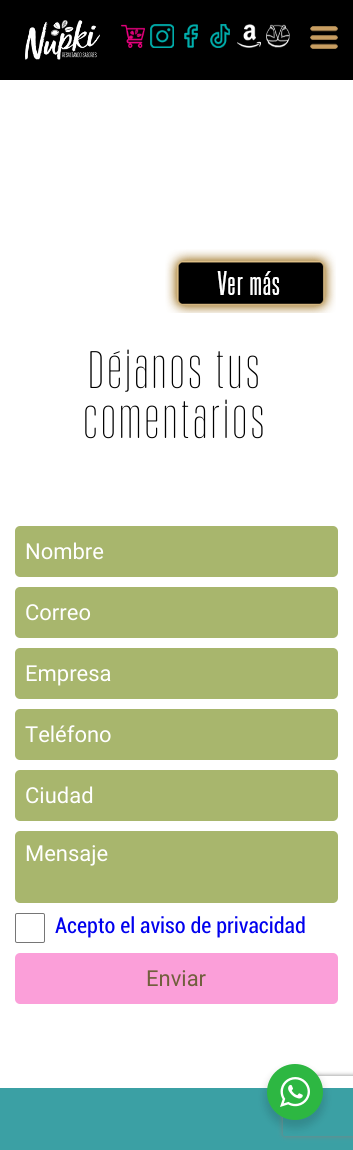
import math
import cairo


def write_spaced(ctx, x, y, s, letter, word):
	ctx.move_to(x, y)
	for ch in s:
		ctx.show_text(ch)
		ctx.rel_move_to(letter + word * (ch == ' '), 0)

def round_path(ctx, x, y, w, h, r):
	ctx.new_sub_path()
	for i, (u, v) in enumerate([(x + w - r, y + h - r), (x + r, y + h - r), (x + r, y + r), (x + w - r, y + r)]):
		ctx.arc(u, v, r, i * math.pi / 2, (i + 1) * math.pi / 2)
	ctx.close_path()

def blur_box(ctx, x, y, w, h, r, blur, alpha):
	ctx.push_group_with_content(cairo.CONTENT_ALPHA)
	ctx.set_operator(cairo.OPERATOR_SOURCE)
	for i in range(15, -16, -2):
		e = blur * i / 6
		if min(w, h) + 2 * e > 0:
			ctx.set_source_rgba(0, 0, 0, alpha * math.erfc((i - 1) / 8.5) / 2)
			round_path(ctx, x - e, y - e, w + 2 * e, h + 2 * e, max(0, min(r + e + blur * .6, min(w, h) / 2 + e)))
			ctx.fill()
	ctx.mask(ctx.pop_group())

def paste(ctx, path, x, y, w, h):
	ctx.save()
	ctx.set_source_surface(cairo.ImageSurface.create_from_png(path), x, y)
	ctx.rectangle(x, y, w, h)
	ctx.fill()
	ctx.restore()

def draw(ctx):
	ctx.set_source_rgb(1, 1, 1)
	ctx.paint()
	ctx.set_source_rgb(0, 0, 0)
	ctx.rectangle(0, 0, 353, 80)
	ctx.fill()
	paste(ctx, 'media/1.png', 25, 20, 75, 40)
	paste(ctx, 'media/2.png', 121, 24, 24, 24)
	paste(ctx, 'media/3.png', 150, 24, 24, 24)
	paste(ctx, 'media/4.png', 184, 24, 14, 24)
	paste(ctx, 'media/5.png', 210, 24, 20, 24)
	paste(ctx, 'media/6.png', 237, 24, 24, 24)
	paste(ctx, 'media/7.png', 266, 24, 24, 24)
	paste(ctx, 'media/8.png', 310, 26, 28, 23)
	paste(ctx, 'media/9.png', 165, 249, 171, 64)
	ctx.select_font_face('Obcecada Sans')
	ctx.set_font_size(42)
	write_spaced(ctx, 89, 388, 'Déjanos tus', 5, 0)
	write_spaced(ctx, 84, 438, 'comentarios', 5, 0)
	ctx.set_source_rgb(0.659, 0.714, 0.427)
	round_path(ctx, 15, 526, 323, 51, 5)
	ctx.fill()
	ctx.select_font_face('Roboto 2')
	ctx.set_font_size(22)
	ctx.set_source_rgb(1, 1, 1)
	ctx.move_to(25, 559)
	ctx.show_text('Nombre')
	ctx.set_source_rgb(0.659, 0.714, 0.427)
	round_path(ctx, 15, 587, 323, 51, 5)
	ctx.fill()
	ctx.set_source_rgb(1, 1, 1)
	ctx.move_to(25, 620)
	ctx.show_text('Correo')
	ctx.set_source_rgb(0.659, 0.714, 0.427)
	round_path(ctx, 15, 648, 323, 51, 5)
	ctx.fill()
	ctx.set_source_rgb(1, 1, 1)
	ctx.move_to(25, 681)
	ctx.show_text('Empresa')
	ctx.set_source_rgb(0.659, 0.714, 0.427)
	round_path(ctx, 15, 709, 323, 51, 5)
	ctx.fill()
	ctx.set_source_rgb(1, 1, 1)
	ctx.move_to(25, 742)
	ctx.show_text('Teléfono')
	ctx.set_source_rgb(0.659, 0.714, 0.427)
	round_path(ctx, 15, 770, 323, 51, 5)
	ctx.fill()
	ctx.set_source_rgb(1, 1, 1)
	ctx.move_to(25, 803)
	ctx.show_text('Ciudad')
	ctx.set_source_rgb(0.659, 0.714, 0.427)
	round_path(ctx, 15, 831, 323, 72, 5)
	ctx.fill()
	ctx.set_source_rgb(1, 1, 1)
	ctx.move_to(25, 861)
	ctx.show_text('Mensaje')
	round_path(ctx, 15.5, 913.5, 29, 29, 1.5)
	ctx.set_source_rgb(0.463, 0.463, 0.463)
	ctx.set_line_width(1)
	ctx.stroke()
	ctx.select_font_face('Roboto')
	ctx.set_source_rgb(0, 0, 0.933)
	ctx.move_to(55, 933)
	ctx.show_text('Acepto el aviso de privacidad')
	ctx.set_source_rgb(0.984, 0.624, 0.851)
	round_path(ctx, 15, 953, 323, 51, 5)
	ctx.fill()
	ctx.select_font_face('Roboto 2')
	ctx.set_source_rgb(0.443, 0.373, 0.239)
	ctx.move_to(146, 986)
	ctx.show_text('Enviar')
	ctx.set_source_rgb(0.231, 0.627, 0.643)
	ctx.rectangle(0, 1088, 353, 62)
	ctx.fill()
	ctx.set_source_rgb(0, 0, 0)
	blur_box(ctx, 265, 1068, 60, 60, 30, 4, 0.14)
	ctx.save()
	ctx.set_fill_rule(cairo.FILL_RULE_EVEN_ODD)
	ctx.new_path()
	ctx.move_to(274, 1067)
	ctx.line_to(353, 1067)
	ctx.line_to(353, 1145)
	ctx.line_to(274, 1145)
	ctx.close_path()
	ctx.move_to(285, 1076)
	ctx.line_to(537, 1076)
	ctx.curve_to(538, 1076, 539, 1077, 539, 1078)
	ctx.line_to(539, 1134)
	ctx.curve_to(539, 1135, 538, 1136, 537, 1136)
	ctx.line_to(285, 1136)
	ctx.curve_to(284, 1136, 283, 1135, 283, 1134)
	ctx.line_to(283, 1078)
	ctx.curve_to(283, 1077, 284, 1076, 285, 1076)
	ctx.close_path()
	ctx.clip()
	ctx.set_source_rgb(0.502, 0.502, 0.502)
	blur_box(ctx, 283, 1076, 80, 60, 2, 2.5, 1)
	ctx.restore()
	ctx.set_source_rgb(0.176, 0.718, 0.259)
	ctx.arc(295, 1092, 28, 0, 2 * math.pi)
	ctx.fill()
	paste(ctx, 'media/10.png', 280, 1077, 30, 30)


surface = cairo.ImageSurface(cairo.FORMAT_RGB24, 353, 1150)
ctx = cairo.Context(surface)
options = cairo.FontOptions()
options.set_hint_metrics(cairo.HINT_METRICS_OFF)
options.set_hint_style(cairo.HINT_STYLE_NONE)
ctx.set_font_options(options)
ctx.set_miter_limit(4)
draw(ctx)
surface.write_to_png('image.png')
